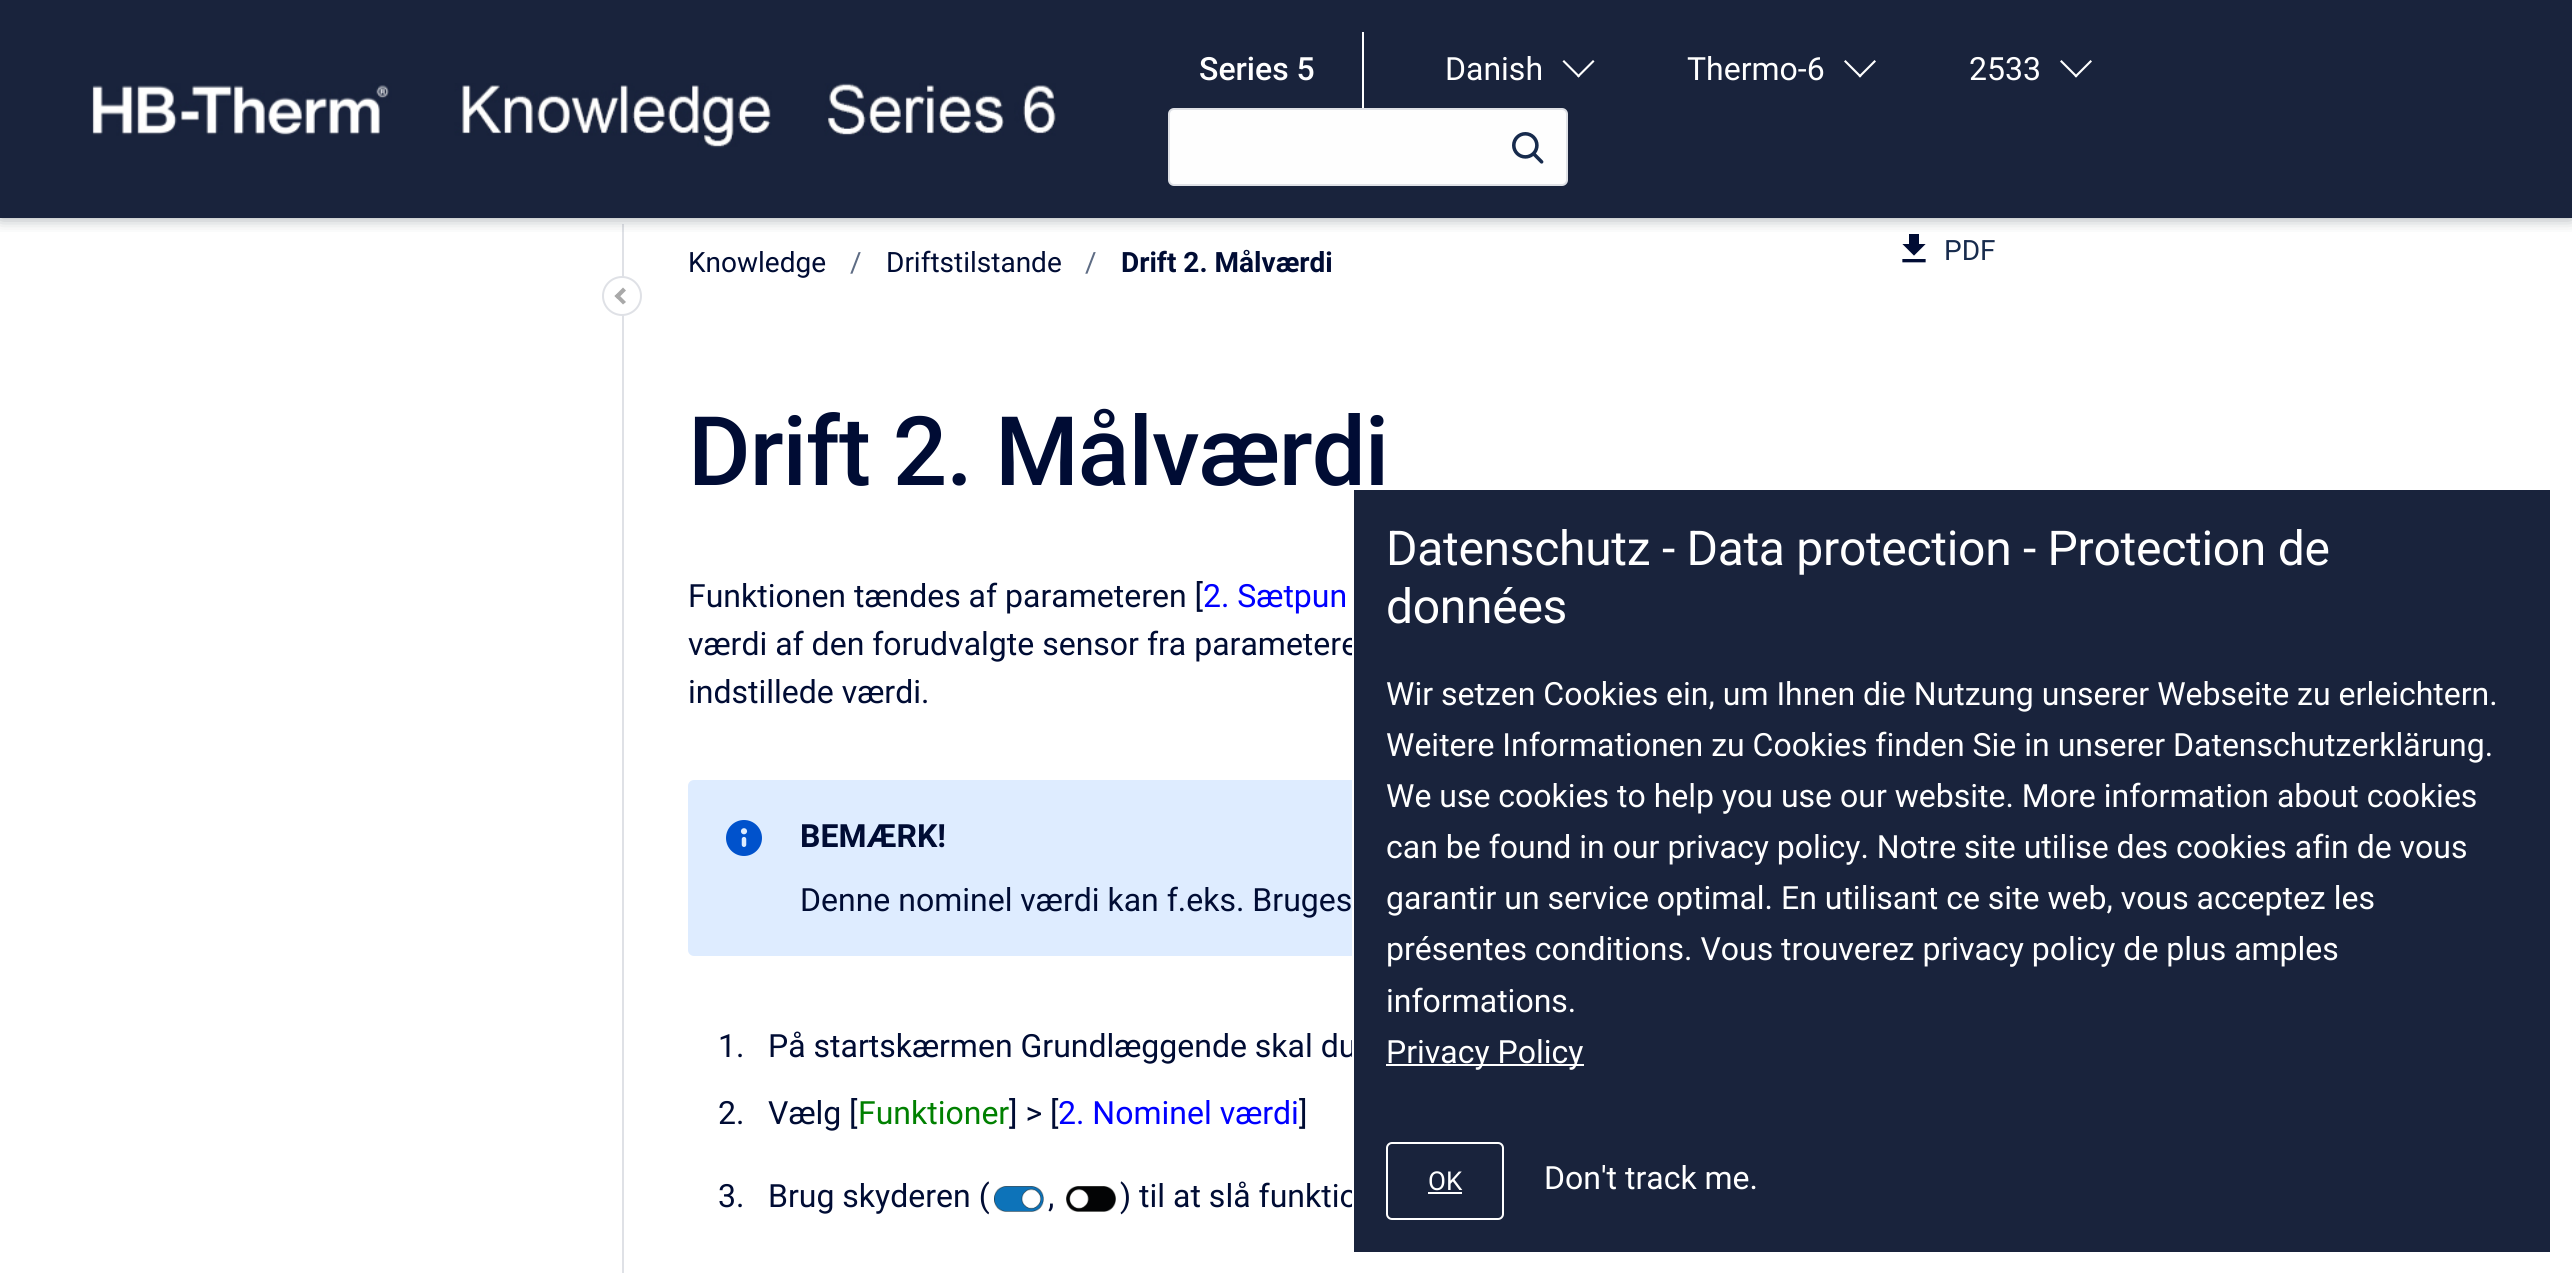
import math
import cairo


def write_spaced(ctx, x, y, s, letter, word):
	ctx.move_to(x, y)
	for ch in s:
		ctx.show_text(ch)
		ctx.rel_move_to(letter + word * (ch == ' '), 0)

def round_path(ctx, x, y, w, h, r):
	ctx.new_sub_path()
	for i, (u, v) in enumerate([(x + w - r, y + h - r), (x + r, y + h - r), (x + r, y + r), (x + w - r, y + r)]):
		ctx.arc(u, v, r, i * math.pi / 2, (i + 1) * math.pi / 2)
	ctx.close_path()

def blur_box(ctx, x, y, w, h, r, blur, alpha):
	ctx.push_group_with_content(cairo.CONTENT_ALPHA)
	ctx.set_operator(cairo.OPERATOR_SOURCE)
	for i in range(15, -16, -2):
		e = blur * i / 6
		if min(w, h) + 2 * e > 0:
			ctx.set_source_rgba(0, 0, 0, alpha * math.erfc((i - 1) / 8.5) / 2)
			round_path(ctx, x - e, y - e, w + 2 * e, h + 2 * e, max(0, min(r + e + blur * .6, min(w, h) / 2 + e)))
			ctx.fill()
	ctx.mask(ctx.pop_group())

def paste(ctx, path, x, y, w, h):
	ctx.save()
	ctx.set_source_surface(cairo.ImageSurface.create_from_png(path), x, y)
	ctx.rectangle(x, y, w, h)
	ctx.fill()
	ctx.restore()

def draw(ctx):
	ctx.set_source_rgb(1, 1, 1)
	ctx.paint()
	ctx.set_source_rgb(0.098, 0.137, 0.235)
	ctx.rectangle(0, 0, 2572, 218)
	ctx.fill()
	ctx.set_source_rgb(0.875, 0.882, 0.902)
	ctx.rectangle(622, 224, 2, 1049)
	ctx.fill()
	paste(ctx, 'media/3.png', 1902, 234, 24, 29)
	ctx.save()
	ctx.rectangle(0, 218, 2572, 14)
	ctx.clip()
	ctx.set_source_rgb(0.231, 0.282, 0.31)
	blur_box(ctx, 0, 0, 2572, 218, 0, 8, 0.5)
	ctx.restore()
	ctx.set_source_rgb(1, 1, 1)
	ctx.rectangle(1362, 32, 2, 76)
	ctx.fill()
	ctx.select_font_face('Roboto Medium')
	ctx.set_font_size(32)
	ctx.move_to(1199, 80)
	ctx.show_text('Series 5')
	ctx.select_font_face('Roboto')
	ctx.move_to(1445, 80)
	ctx.show_text('Danish')
	ctx.new_path()
	ctx.move_to(1594.5, 61.5)
	ctx.line_to(1578.5, 77.5)
	ctx.line_to(1577, 76)
	ctx.line_to(1593, 60)
	ctx.close_path()
	ctx.fill()
	ctx.new_path()
	ctx.move_to(1580, 76)
	ctx.line_to(1578.5, 77.5)
	ctx.line_to(1562.5, 61.5)
	ctx.line_to(1564, 60)
	ctx.close_path()
	ctx.fill()
	ctx.move_to(1687, 80)
	ctx.show_text('Thermo-6')
	ctx.new_path()
	ctx.move_to(1876, 61.5)
	ctx.line_to(1860, 77.5)
	ctx.line_to(1858.5, 76)
	ctx.line_to(1874.5, 60)
	ctx.close_path()
	ctx.fill()
	ctx.new_path()
	ctx.move_to(1861.5, 76)
	ctx.line_to(1860, 77.5)
	ctx.line_to(1844, 61.5)
	ctx.line_to(1845.5, 60)
	ctx.close_path()
	ctx.fill()
	ctx.move_to(1969, 80)
	ctx.show_text('2533')
	ctx.new_path()
	ctx.move_to(2092, 61.5)
	ctx.line_to(2076, 77.5)
	ctx.line_to(2074.5, 76)
	ctx.line_to(2090.5, 60)
	ctx.close_path()
	ctx.fill()
	ctx.new_path()
	ctx.move_to(2077.5, 76)
	ctx.line_to(2076, 77.5)
	ctx.line_to(2060, 61.5)
	ctx.line_to(2061.5, 60)
	ctx.close_path()
	ctx.fill()
	ctx.set_source_rgb(0.996, 0.996, 0.996)
	round_path(ctx, 1169, 109, 398, 76, 5)
	ctx.fill_preserve()
	ctx.set_source_rgb(0.875, 0.882, 0.902)
	ctx.stroke()
	paste(ctx, 'media/1.png', 1512, 132, 32, 32)
	paste(ctx, 'media/2.png', 92, 83, 964, 65)
	ctx.set_source_rgb(1, 1, 1)
	ctx.arc(622, 296, 19, 0, 2 * math.pi)
	ctx.fill_preserve()
	ctx.set_source_rgb(0.875, 0.882, 0.902)
	ctx.stroke()
	ctx.set_source_rgb(0.663, 0.663, 0.663)
	ctx.new_path()
	ctx.move_to(623, 304.5)
	ctx.line_to(614.5, 296)
	ctx.line_to(617.5, 293.5)
	ctx.line_to(626, 302)
	ctx.close_path()
	ctx.fill()
	ctx.new_path()
	ctx.move_to(617.5, 299)
	ctx.line_to(614.5, 296)
	ctx.line_to(623, 287.5)
	ctx.line_to(626, 290.5)
	ctx.close_path()
	ctx.fill()
	ctx.set_font_size(28)
	ctx.set_source_rgb(0, 0.047, 0.204)
	ctx.move_to(688, 272)
	ctx.show_text('Knowledge')
	ctx.set_source_rgb(0.369, 0.424, 0.518)
	ctx.move_to(850, 272)
	ctx.show_text('/')
	ctx.set_source_rgb(0, 0.047, 0.204)
	ctx.move_to(886, 272)
	ctx.show_text('Driftstilstande')
	ctx.set_source_rgb(0.369, 0.424, 0.518)
	ctx.move_to(1085, 272)
	ctx.show_text('/')
	ctx.select_font_face('Roboto', cairo.FONT_SLANT_NORMAL, cairo.FONT_WEIGHT_BOLD)
	ctx.set_source_rgb(0, 0.047, 0.204)
	ctx.move_to(1121, 272)
	ctx.show_text('Drift 2. Målværdi')
	ctx.select_font_face('Roboto')
	ctx.set_source_rgb(0.09, 0.169, 0.302)
	ctx.move_to(1944, 260)
	ctx.show_text('PDF')
	ctx.select_font_face('Roboto Medium')
	ctx.set_font_size(96)
	ctx.set_source_rgb(0, 0.047, 0.204)
	write_spaced(ctx, 688, 485, 'Drift 2. Målværdi', -1, 0)
	ctx.select_font_face('Roboto')
	ctx.set_font_size(32)
	ctx.move_to(688, 607)
	ctx.show_text('Funktionen tændes af parameteren [')
	ctx.set_source_rgb(0, 0, 1)
	ctx.move_to(1203, 607)
	ctx.show_text('2. Sætpun')
	ctx.set_source_rgb(0, 0.047, 0.204)
	ctx.move_to(688, 655)
	ctx.show_text('værdi af den forudvalgte sensor fra parametere')
	ctx.move_to(688, 703)
	ctx.show_text('indstillede værdi.')
	ctx.set_source_rgb(0.871, 0.922, 1)
	round_path(ctx, 688, 780, 1316, 176, 6)
	ctx.fill()
	paste(ctx, 'media/4.png', 726, 820, 36, 36)
	ctx.select_font_face('Roboto', cairo.FONT_SLANT_NORMAL, cairo.FONT_WEIGHT_BOLD)
	ctx.set_source_rgb(0, 0.047, 0.204)
	ctx.move_to(800, 847)
	ctx.show_text('BEMÆRK!')
	ctx.select_font_face('Roboto')
	for x, y, s in [
		(800, 911, 'Denne nominel værdi kan f.eks. Bruges'),
		(718, 1057, '1.'),
		(768, 1057, 'På startskærmen Grundlæggende skal du'),
		(718, 1124, '2.'),
		(768, 1124, 'Vælg ['),
	]:
		ctx.move_to(x, y)
		ctx.show_text(s)
	ctx.set_source_rgb(0, 0.502, 0)
	ctx.move_to(858, 1124)
	ctx.show_text('Funktioner')
	ctx.set_source_rgb(0, 0.047, 0.204)
	ctx.move_to(1009, 1124)
	ctx.show_text('] > [')
	ctx.set_source_rgb(0, 0, 1)
	ctx.move_to(1058, 1124)
	ctx.show_text('2. Nominel værdi')
	ctx.set_source_rgb(0, 0.047, 0.204)
	for x, y, s in [
		(1299, 1124, ']'),
		(718, 1207, '3.'),
		(768, 1207, 'Brug skyderen ('),
	]:
		ctx.move_to(x, y)
		ctx.show_text(s)
	paste(ctx, 'media/5.png', 994, 1186, 50, 26)
	ctx.move_to(1048, 1207)
	ctx.show_text(',')
	paste(ctx, 'media/6.png', 1066, 1186, 50, 26)
	ctx.move_to(1120, 1207)
	ctx.show_text(') til at slå funktio')
	ctx.set_source_rgb(0.098, 0.137, 0.235)
	ctx.rectangle(1353, 489, 1198, 764)
	ctx.fill_preserve()
	ctx.set_source_rgb(1, 1, 1)
	ctx.stroke()
	ctx.set_font_size(48)
	write_spaced(ctx, 1386, 565, 'Datenschutz - Data protection - Protection de', -0.3, 0)
	write_spaced(ctx, 1386, 623, 'données', -0.3, 0)
	ctx.set_font_size(32)
	for x, y, s in [
		(1386, 705, 'Wir setzen Cookies ein, um Ihnen die Nutzung unserer Webseite zu erleichtern.'),
		(1386, 756, 'Weitere Informationen zu Cookies finden Sie in unserer Datenschutzerklärung.'),
		(1386, 807, 'We use cookies to help you use our website. More information about cookies'),
		(1386, 858, 'can be found in our privacy policy. Notre site utilise des cookies afin de vous'),
		(1386, 909, 'garantir un service optimal. En utilisant ce site web, vous acceptez les'),
		(1386, 960, 'présentes conditions. Vous trouverez privacy policy de plus amples'),
		(1386, 1012, 'informations.'),
	]:
		ctx.move_to(x, y)
		ctx.show_text(s)
	ctx.rectangle(1386, 1064, 198, 2)
	ctx.fill()
	ctx.move_to(1386, 1063)
	ctx.show_text('Privacy Policy')
	round_path(ctx, 1387, 1143, 116, 76, 5)
	ctx.stroke()
	ctx.set_font_size(26)
	ctx.move_to(1428, 1190)
	ctx.show_text('OK')
	ctx.rectangle(1428, 1192, 34, 2)
	ctx.fill()
	ctx.set_font_size(32)
	ctx.move_to(1544, 1189)
	ctx.show_text('Don\'t track me.')


surface = cairo.ImageSurface(cairo.FORMAT_RGB24, 2572, 1273)
ctx = cairo.Context(surface)
options = cairo.FontOptions()
options.set_hint_metrics(cairo.HINT_METRICS_OFF)
options.set_hint_style(cairo.HINT_STYLE_NONE)
ctx.set_font_options(options)
ctx.set_miter_limit(4)
draw(ctx)
surface.write_to_png('image.png')
